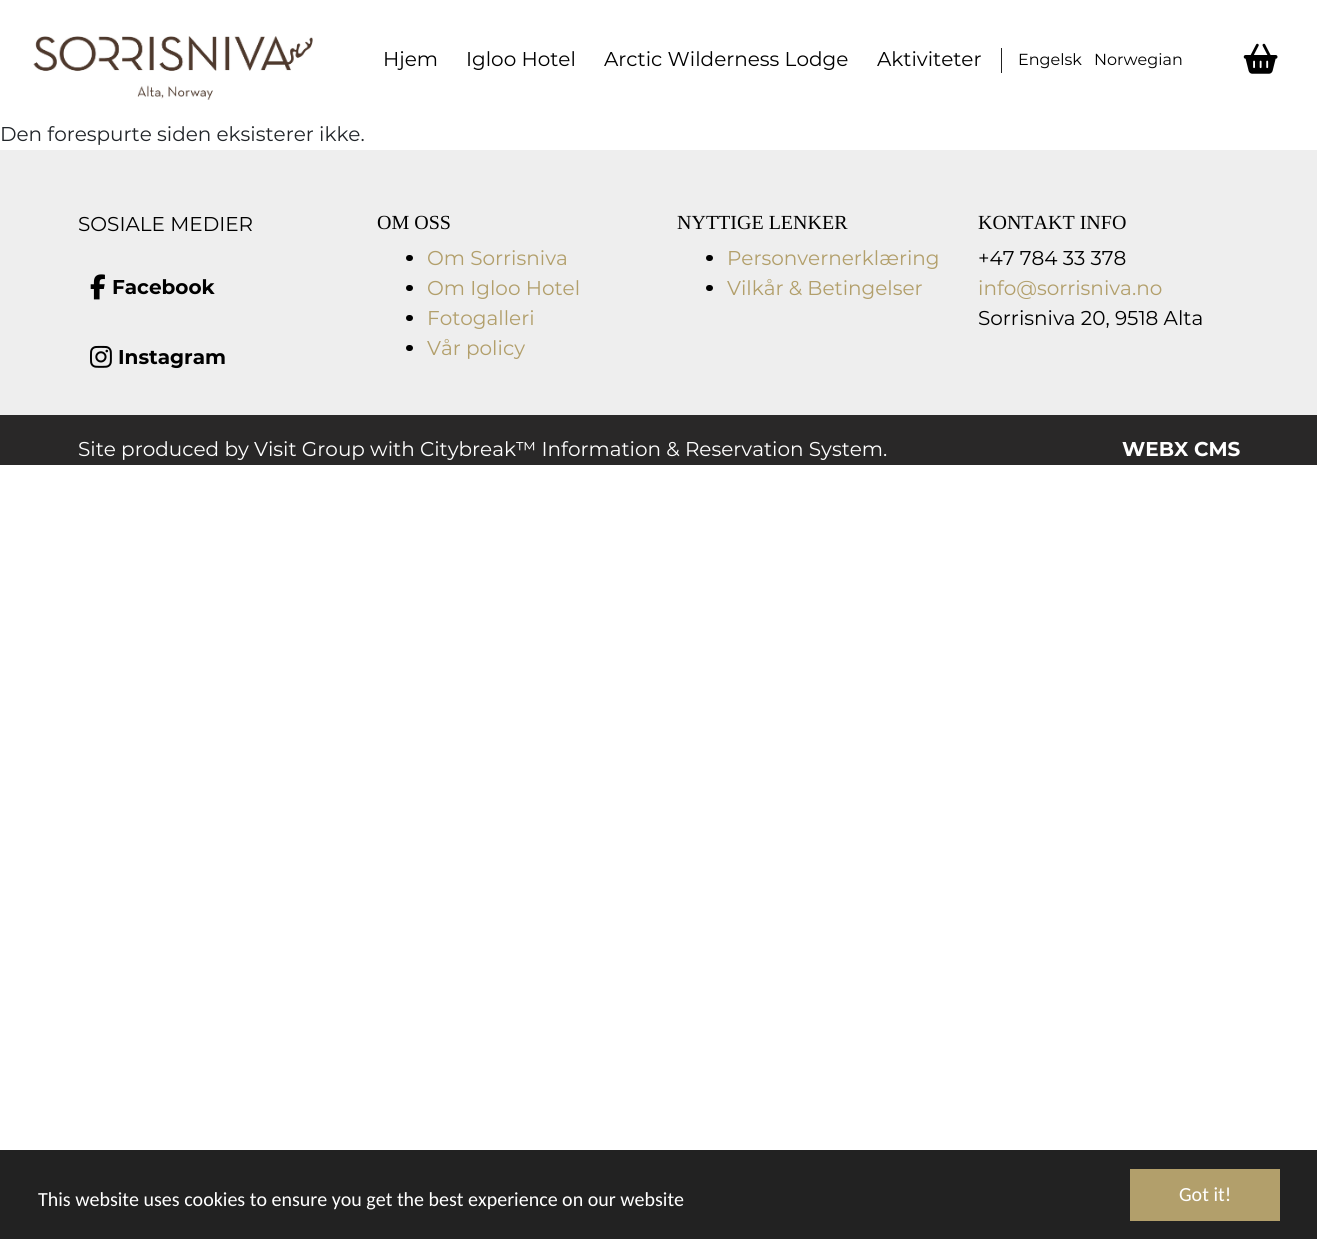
import math
import cairo


def round_path(ctx, x, y, w, h, r):
	ctx.new_sub_path()
	for i, (u, v) in enumerate([(x + w - r, y + h - r), (x + r, y + h - r), (x + r, y + r), (x + w - r, y + r)]):
		ctx.arc(u, v, r, i * math.pi / 2, (i + 1) * math.pi / 2)
	ctx.close_path()

def paste(ctx, path, x, y, w, h):
	ctx.save()
	ctx.set_source_surface(cairo.ImageSurface.create_from_png(path), x, y)
	ctx.rectangle(x, y, w, h)
	ctx.fill()
	ctx.restore()

def draw(ctx):
	ctx.set_source_rgb(1, 1, 1)
	ctx.paint()
	paste(ctx, 'media/1.png', 33, 36, 280, 64)
	ctx.select_font_face('Montserrat')
	ctx.set_font_size(20)
	ctx.set_source_rgb(0, 0, 0)
	for x, y, s in [
		(383, 66, 'Hjem'),
		(466, 66, 'Igloo Hotel'),
		(604, 66, 'Arctic Wilderness Lodge'),
		(877, 66, 'Aktiviteter'),
	]:
		ctx.move_to(x, y)
		ctx.show_text(s)
	ctx.set_source_rgb(0.129, 0.129, 0.129)
	ctx.rectangle(1001, 48, 1, 25)
	ctx.fill()
	ctx.set_font_size(16)
	ctx.set_source_rgb(0, 0, 0)
	ctx.move_to(1018, 65)
	ctx.show_text('Engelsk')
	ctx.move_to(1094, 65)
	ctx.show_text('Norwegian')
	paste(ctx, 'media/2.png', 1243, 43, 35, 31)
	ctx.set_font_size(20)
	ctx.set_source_rgb(0.129, 0.145, 0.161)
	ctx.move_to(0, 141)
	ctx.show_text('Den forespurte siden eksisterer ikke.')
	ctx.set_source_rgb(0.933, 0.933, 0.933)
	ctx.rectangle(0, 150, 1317, 265)
	ctx.fill()
	ctx.set_source_rgb(0, 0, 0)
	ctx.move_to(78, 231)
	ctx.show_text('SOSIALE MEDIER')
	paste(ctx, 'media/3.png', 90, 274, 15, 26)
	ctx.select_font_face('Montserrat', cairo.FONT_SLANT_NORMAL, cairo.FONT_WEIGHT_BOLD)
	ctx.move_to(112, 294)
	ctx.show_text('Facebook')
	paste(ctx, 'media/4.png', 90, 345, 22, 23)
	ctx.move_to(118, 364)
	ctx.show_text('Instagram')
	ctx.select_font_face('Tinos')
	ctx.move_to(377, 229)
	ctx.show_text('OM OSS')
	round_path(ctx, 406, 255, 7, 6, 3)
	ctx.fill()
	ctx.select_font_face('Montserrat')
	ctx.set_source_rgb(0.698, 0.624, 0.42)
	ctx.move_to(427, 265)
	ctx.show_text('Om Sorrisniva')
	ctx.set_source_rgb(0, 0, 0)
	round_path(ctx, 406, 285, 7, 6, 3)
	ctx.fill()
	ctx.set_source_rgb(0.698, 0.624, 0.42)
	ctx.move_to(427, 295)
	ctx.show_text('Om Igloo Hotel')
	ctx.set_source_rgb(0, 0, 0)
	round_path(ctx, 406, 315, 7, 6, 3)
	ctx.fill()
	ctx.set_source_rgb(0.698, 0.624, 0.42)
	ctx.move_to(427, 325)
	ctx.show_text('Fotogalleri')
	ctx.set_source_rgb(0, 0, 0)
	round_path(ctx, 406, 345, 7, 6, 3)
	ctx.fill()
	ctx.set_source_rgb(0.698, 0.624, 0.42)
	ctx.move_to(427, 355)
	ctx.show_text('Vår policy')
	ctx.select_font_face('Tinos')
	ctx.set_source_rgb(0, 0, 0)
	ctx.move_to(677, 229)
	ctx.show_text('NYTTIGE LENKER')
	round_path(ctx, 706, 255, 7, 6, 3)
	ctx.fill()
	ctx.select_font_face('Montserrat')
	ctx.set_source_rgb(0.698, 0.624, 0.42)
	ctx.move_to(727, 265)
	ctx.show_text('Personvernerklæring')
	ctx.set_source_rgb(0, 0, 0)
	round_path(ctx, 706, 285, 7, 6, 3)
	ctx.fill()
	ctx.set_source_rgb(0.698, 0.624, 0.42)
	ctx.move_to(727, 295)
	ctx.show_text('Vilkår & Betingelser')
	ctx.select_font_face('Tinos')
	ctx.set_source_rgb(0, 0, 0)
	ctx.move_to(978, 229)
	ctx.show_text('KONTAKT INFO')
	ctx.select_font_face('Montserrat')
	ctx.move_to(978, 265)
	ctx.show_text('+47 784 33 378')
	ctx.set_source_rgb(0.698, 0.624, 0.42)
	ctx.move_to(978, 295)
	ctx.show_text('info@sorrisniva.no')
	ctx.set_source_rgb(0, 0, 0)
	ctx.move_to(978, 325)
	ctx.show_text('Sorrisniva 20, 9518 Alta')
	ctx.set_source_rgb(0.161, 0.157, 0.157)
	ctx.rectangle(0, 415, 1317, 50)
	ctx.fill()
	ctx.set_source_rgb(1, 1, 1)
	ctx.move_to(78, 456)
	ctx.show_text('Site produced by Visit Group with Citybreak™ Information & Reservation System.')
	ctx.select_font_face('Montserrat', cairo.FONT_SLANT_NORMAL, cairo.FONT_WEIGHT_BOLD)
	ctx.move_to(1122, 456)
	ctx.show_text('WEBX CMS')
	ctx.set_source_rgb(0.133, 0.133, 0.133)
	ctx.rectangle(0, 1150, 1317, 89)
	ctx.fill()
	ctx.select_font_face('Carlito')
	ctx.set_source_rgb(1, 1, 1)
	ctx.move_to(38, 1206)
	ctx.show_text('This website uses cookies to ensure you get the best experience on our website')
	ctx.set_source_rgb(0.698, 0.624, 0.42)
	ctx.rectangle(1130, 1169, 150, 52)
	ctx.fill()
	ctx.set_source_rgb(1, 1, 1)
	ctx.move_to(1179, 1201)
	ctx.show_text('Got it!')


surface = cairo.ImageSurface(cairo.FORMAT_RGB24, 1317, 1239)
ctx = cairo.Context(surface)
options = cairo.FontOptions()
options.set_hint_metrics(cairo.HINT_METRICS_OFF)
options.set_hint_style(cairo.HINT_STYLE_NONE)
ctx.set_font_options(options)
ctx.set_miter_limit(4)
draw(ctx)
surface.write_to_png('image.png')
